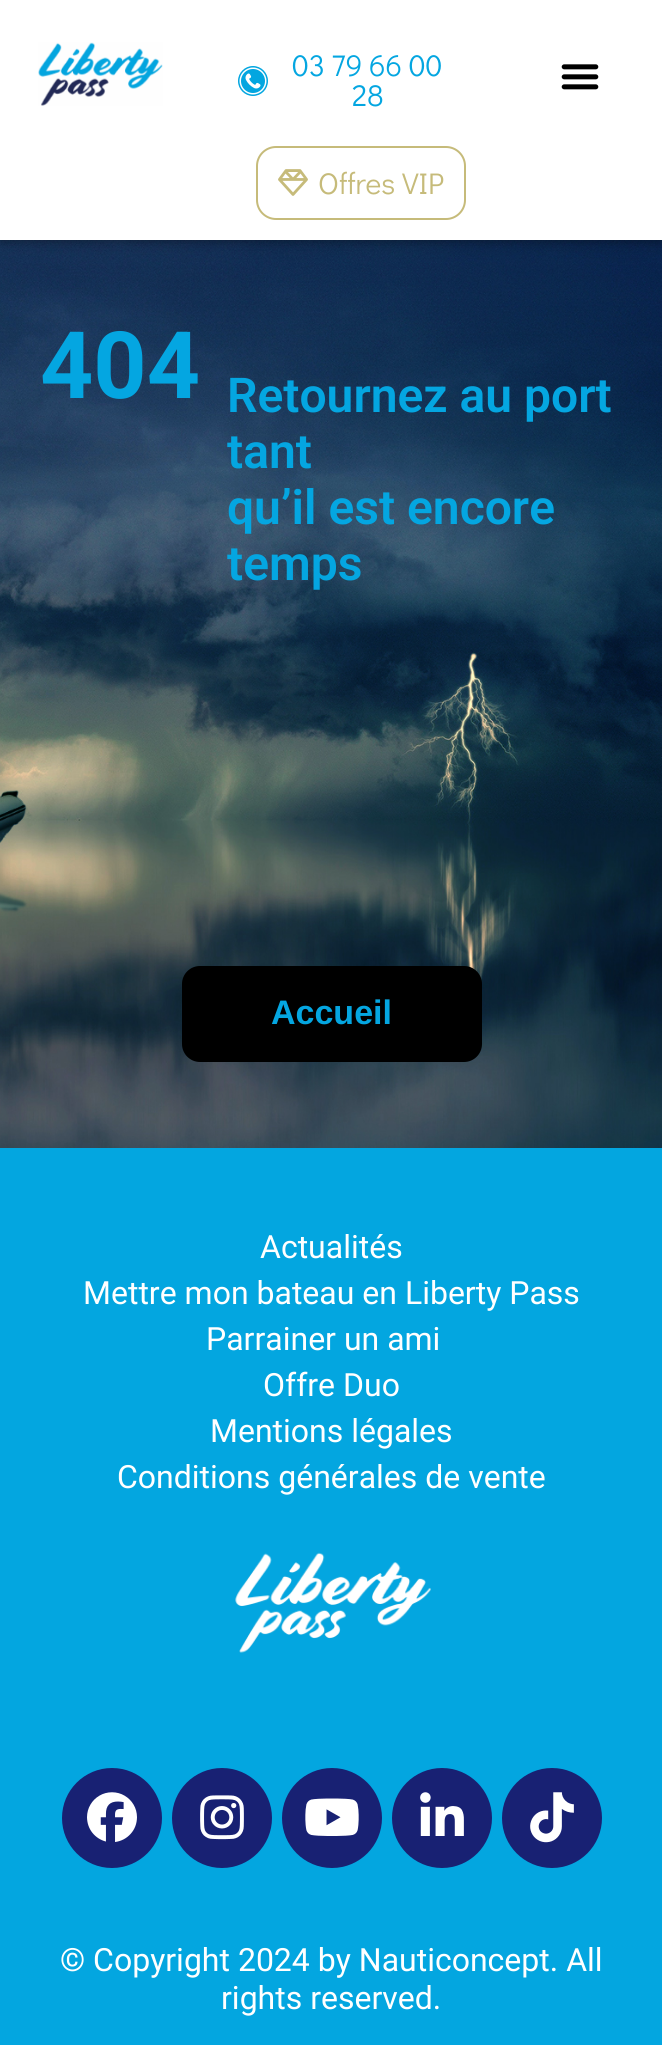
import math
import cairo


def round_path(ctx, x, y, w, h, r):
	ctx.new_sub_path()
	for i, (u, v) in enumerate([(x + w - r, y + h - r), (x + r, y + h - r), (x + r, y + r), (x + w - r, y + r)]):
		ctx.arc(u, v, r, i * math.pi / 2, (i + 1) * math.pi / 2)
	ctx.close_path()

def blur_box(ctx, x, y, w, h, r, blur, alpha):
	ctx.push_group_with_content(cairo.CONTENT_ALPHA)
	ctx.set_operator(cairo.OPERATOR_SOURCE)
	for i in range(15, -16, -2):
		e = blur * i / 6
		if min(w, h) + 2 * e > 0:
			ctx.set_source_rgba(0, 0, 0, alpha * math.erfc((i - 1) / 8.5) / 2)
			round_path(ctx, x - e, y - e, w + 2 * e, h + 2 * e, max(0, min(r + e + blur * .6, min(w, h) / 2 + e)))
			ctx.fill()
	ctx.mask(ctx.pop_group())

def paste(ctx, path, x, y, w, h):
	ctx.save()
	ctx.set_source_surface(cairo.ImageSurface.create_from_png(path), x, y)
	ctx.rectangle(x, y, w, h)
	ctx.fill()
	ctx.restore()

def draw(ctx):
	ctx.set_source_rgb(1, 1, 1)
	ctx.paint()
	paste(ctx, 'media/5.png', 0, 240, 662, 908)
	ctx.set_source_rgb(0, 0, 0)
	blur_box(ctx, 0, 0, 662, 240, 0, 7, 0.5)
	ctx.set_source_rgb(1, 1, 1)
	ctx.rectangle(0, 0, 662, 240)
	ctx.fill()
	paste(ctx, 'media/1.png', 38, 42, 125, 64)
	paste(ctx, 'media/2.png', 238, 66, 30, 30)
	ctx.select_font_face('Didact Gothic')
	ctx.set_font_size(30)
	ctx.set_source_rgb(0.016, 0.651, 0.882)
	ctx.move_to(292, 76)
	ctx.show_text('03 79 66 00')
	ctx.move_to(352, 106)
	ctx.show_text('28')
	paste(ctx, 'media/3.png', 561, 64, 38, 26)
	round_path(ctx, 257, 147, 208, 72, 19)
	ctx.set_source_rgb(0.776, 0.733, 0.478)
	ctx.stroke()
	paste(ctx, 'media/4.png', 278, 169, 30, 27)
	ctx.move_to(318, 194)
	ctx.show_text('Offres VIP')
	ctx.select_font_face('Roboto', cairo.FONT_SLANT_NORMAL, cairo.FONT_WEIGHT_BOLD)
	ctx.set_font_size(93)
	ctx.set_source_rgb(0.016, 0.651, 0.882)
	ctx.move_to(40, 398)
	ctx.show_text('404')
	ctx.select_font_face('Roboto SemiBold')
	ctx.set_font_size(48)
	for x, y, s in [
		(227, 412, 'Retournez au port'),
		(227, 468, 'tant'),
		(227, 524, 'qu’il est encore'),
		(227, 580, 'temps'),
	]:
		ctx.move_to(x, y)
		ctx.show_text(s)
	ctx.set_source_rgb(0, 0, 0)
	round_path(ctx, 182, 966, 300, 96, 18)
	ctx.fill()
	ctx.select_font_face('Liberation Sans', cairo.FONT_SLANT_NORMAL, cairo.FONT_WEIGHT_BOLD)
	ctx.set_font_size(34)
	ctx.set_source_rgb(0.016, 0.651, 0.882)
	ctx.move_to(271, 1024)
	ctx.show_text('Accueil')
	ctx.set_source_rgb(0.012, 0.651, 0.878)
	ctx.rectangle(0, 1148, 662, 897)
	ctx.fill()
	ctx.select_font_face('Roboto')
	ctx.set_font_size(32)
	ctx.set_source_rgb(1, 1, 1)
	for x, y, s in [
		(260, 1258, 'Actualités'),
		(83, 1304, 'Mettre mon bateau en Liberty Pass'),
		(206, 1350, 'Parrainer un ami'),
		(263, 1396, 'Offre Duo'),
		(210, 1442, 'Mentions légales'),
		(117, 1488, 'Conditions générales de vente'),
	]:
		ctx.move_to(x, y)
		ctx.show_text(s)
	paste(ctx, 'media/6.png', 235, 1552, 196, 101)
	ctx.set_source_rgb(0.094, 0.129, 0.451)
	ctx.arc(112, 1818, 50, 0, 2 * math.pi)
	ctx.fill()
	paste(ctx, 'media/7.png', 87, 1792, 50, 50)
	ctx.arc(222, 1818, 50, 0, 2 * math.pi)
	ctx.fill()
	paste(ctx, 'media/8.png', 200, 1795, 44, 45)
	ctx.arc(332, 1818, 50, 0, 2 * math.pi)
	ctx.fill()
	paste(ctx, 'media/9.png', 305, 1798, 54, 38)
	ctx.arc(442, 1818, 50, 0, 2 * math.pi)
	ctx.fill()
	paste(ctx, 'media/10.png', 420, 1792, 44, 44)
	ctx.arc(552, 1818, 50, 0, 2 * math.pi)
	ctx.fill()
	paste(ctx, 'media/11.png', 530, 1792, 44, 51)
	ctx.set_source_rgb(1, 1, 1)
	ctx.move_to(60, 1971)
	ctx.show_text('© Copyright 2024 by Nauticoncept. All')
	ctx.move_to(221, 2009)
	ctx.show_text('rights reserved.')


surface = cairo.ImageSurface(cairo.FORMAT_RGB24, 662, 2045)
ctx = cairo.Context(surface)
options = cairo.FontOptions()
options.set_hint_metrics(cairo.HINT_METRICS_OFF)
options.set_hint_style(cairo.HINT_STYLE_NONE)
ctx.set_font_options(options)
ctx.set_miter_limit(4)
draw(ctx)
surface.write_to_png('image.png')
